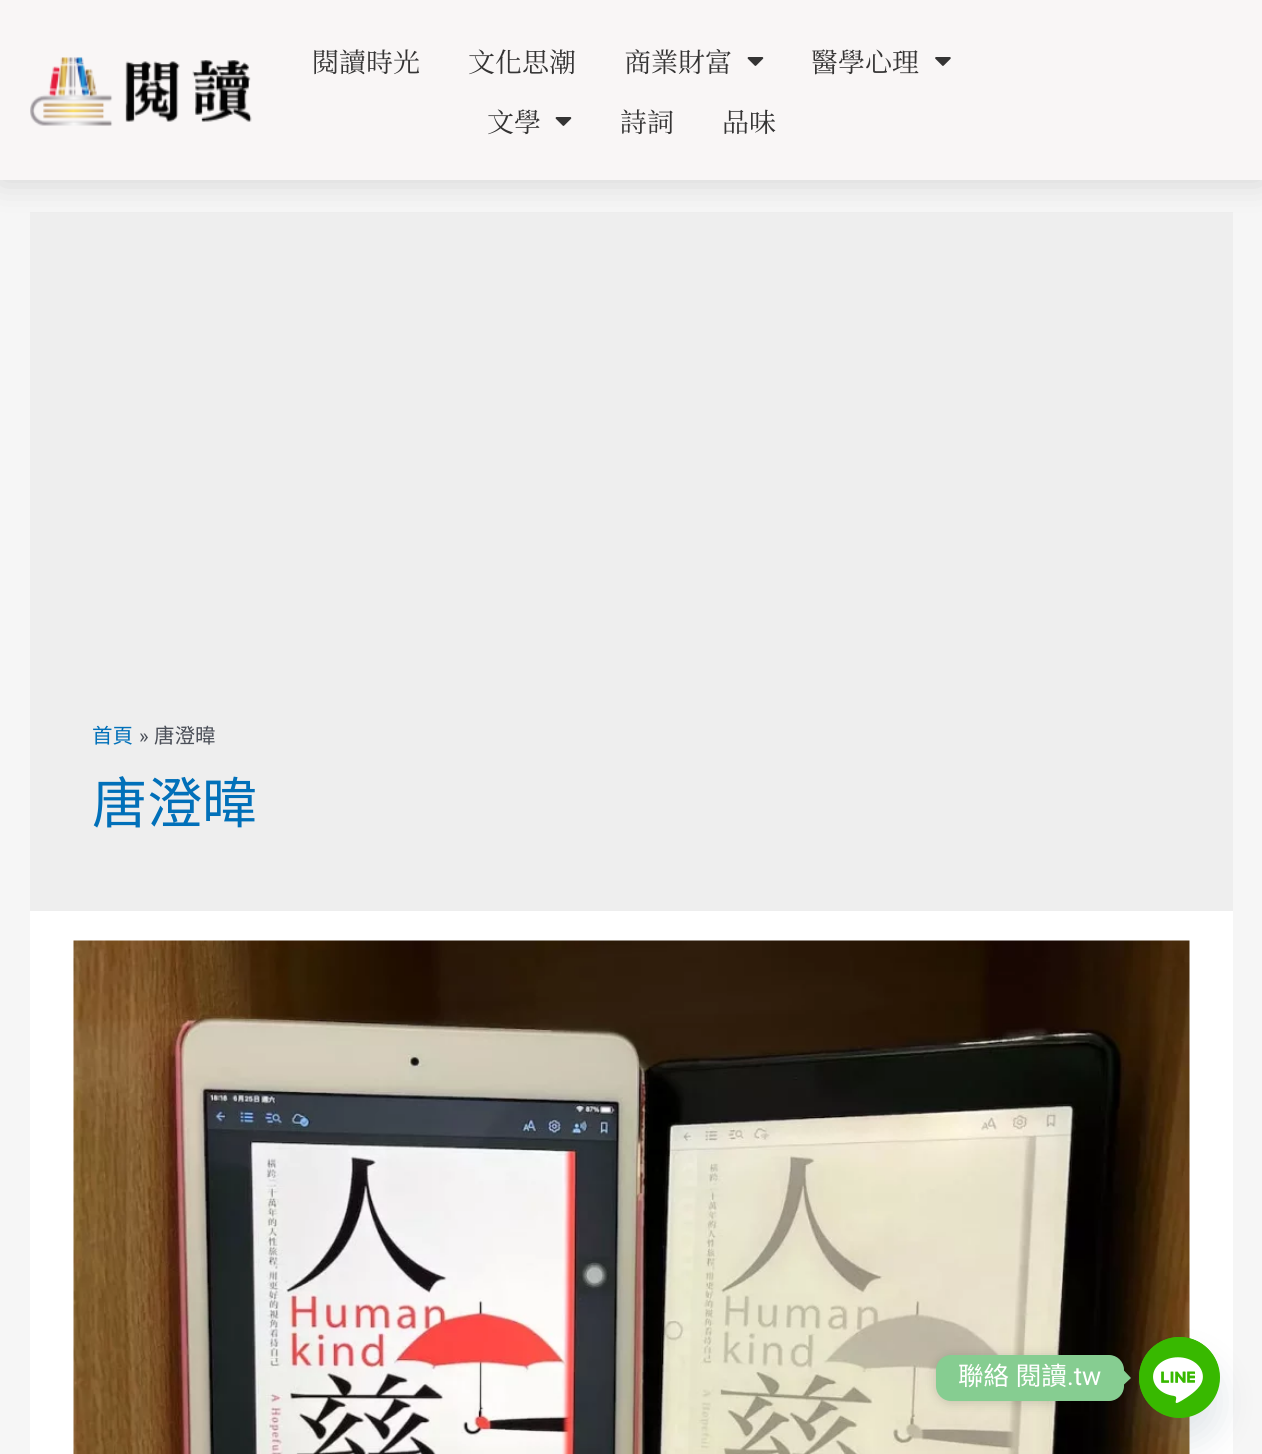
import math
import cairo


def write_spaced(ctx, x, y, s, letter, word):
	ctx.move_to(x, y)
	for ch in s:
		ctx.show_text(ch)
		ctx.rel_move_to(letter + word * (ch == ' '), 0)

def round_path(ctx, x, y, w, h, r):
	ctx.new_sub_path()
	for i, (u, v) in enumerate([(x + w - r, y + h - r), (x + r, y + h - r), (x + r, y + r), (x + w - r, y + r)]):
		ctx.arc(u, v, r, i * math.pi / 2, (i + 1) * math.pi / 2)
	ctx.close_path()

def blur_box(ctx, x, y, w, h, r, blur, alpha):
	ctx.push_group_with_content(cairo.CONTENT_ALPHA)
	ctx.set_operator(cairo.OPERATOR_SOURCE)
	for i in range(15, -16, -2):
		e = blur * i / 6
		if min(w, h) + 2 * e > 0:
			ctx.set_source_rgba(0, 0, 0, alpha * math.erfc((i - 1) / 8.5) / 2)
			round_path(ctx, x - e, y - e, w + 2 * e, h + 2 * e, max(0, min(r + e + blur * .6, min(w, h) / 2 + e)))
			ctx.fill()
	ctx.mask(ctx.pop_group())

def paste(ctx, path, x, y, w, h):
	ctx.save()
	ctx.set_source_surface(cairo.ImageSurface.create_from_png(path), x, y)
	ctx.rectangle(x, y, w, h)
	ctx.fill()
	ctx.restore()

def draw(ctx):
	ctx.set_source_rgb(0.961, 0.961, 0.961)
	ctx.paint()
	ctx.set_source_rgb(0.933, 0.933, 0.933)
	ctx.rectangle(30, 212, 1203, 699)
	ctx.fill()
	ctx.set_source_rgb(0, 0, 0)
	blur_box(ctx, 0, 0, 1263, 180, 0, 18, 0.15)
	ctx.set_source_rgb(0.973, 0.961, 0.961)
	ctx.rectangle(0, 0, 1262, 180)
	ctx.fill()
	paste(ctx, 'media/1.png', 30, 57, 222, 69)
	ctx.select_font_face('Noto Serif TC')
	ctx.set_font_size(27)
	ctx.set_source_rgb(0.208, 0.204, 0.204)
	for x, y, s in [
		(312, 72, '閱讀時光'),
		(468, 72, '文化思潮'),
		(624, 72, '商業財富'),
	]:
		ctx.move_to(x, y)
		ctx.show_text(s)
	paste(ctx, 'media/2.png', 747, 57, 17, 9)
	ctx.move_to(811, 72)
	ctx.show_text('醫學心理')
	paste(ctx, 'media/3.png', 935, 57, 16, 9)
	ctx.move_to(487, 132)
	ctx.show_text('文學')
	paste(ctx, 'media/2.png', 555, 117, 17, 9)
	ctx.move_to(620, 132)
	ctx.show_text('詩詞')
	ctx.move_to(722, 132)
	ctx.show_text('品味')
	ctx.select_font_face('Noto Sans CJK TC')
	ctx.set_font_size(20.5)
	ctx.set_source_rgb(0.004, 0.439, 0.725)
	ctx.move_to(92, 743)
	ctx.show_text('首頁')
	ctx.select_font_face('Roboto')
	ctx.set_source_rgb(0.294, 0.31, 0.345)
	ctx.move_to(139, 743)
	ctx.show_text('»')
	ctx.select_font_face('Noto Sans CJK TC')
	ctx.move_to(154, 743)
	ctx.show_text('唐澄暐')
	ctx.set_font_size(55)
	ctx.set_source_rgb(0.004, 0.439, 0.725)
	ctx.move_to(92, 823)
	ctx.show_text('唐澄暐')
	ctx.set_source_rgb(1, 1, 1)
	ctx.rectangle(30, 911, 1203, 543)
	ctx.fill()
	paste(ctx, 'media/4.png', 73, 940, 1117, 514)
	ctx.set_source_rgb(0.286, 0.408, 0.494)
	blur_box(ctx, 1139, 1361, 81, 81, 40.5, 18, 0.16)
	ctx.set_source_rgb(0.22, 0.725, 0)
	ctx.arc(1179.5, 1377.5, 40.5, 0, 2 * math.pi)
	ctx.fill()
	paste(ctx, 'media/5.png', 1139, 1337, 81, 81)
	ctx.set_source_rgb(0, 0, 0)
	blur_box(ctx, 936, 1356, 188, 47, 15, 6, 0.15)
	ctx.set_source_rgb(0.525, 0.804, 0.569)
	round_path(ctx, 936, 1355, 188, 46, 15)
	ctx.fill()
	ctx.set_font_size(25.5)
	ctx.set_source_rgb(1, 1, 1)
	write_spaced(ctx, 958, 1385, '聯絡 閱讀', 0, 1)
	ctx.select_font_face('Roboto')
	ctx.move_to(1067, 1385)
	ctx.show_text('.tw')
	ctx.set_source_rgb(0.525, 0.804, 0.569)
	ctx.new_path()
	ctx.move_to(1123.5, 1385)
	ctx.line_to(1123.5, 1370)
	ctx.line_to(1131, 1378)
	ctx.close_path()
	ctx.fill()


surface = cairo.ImageSurface(cairo.FORMAT_RGB24, 1262, 1454)
ctx = cairo.Context(surface)
options = cairo.FontOptions()
options.set_hint_metrics(cairo.HINT_METRICS_OFF)
options.set_hint_style(cairo.HINT_STYLE_NONE)
ctx.set_font_options(options)
ctx.set_miter_limit(4)
draw(ctx)
surface.write_to_png('image.png')
